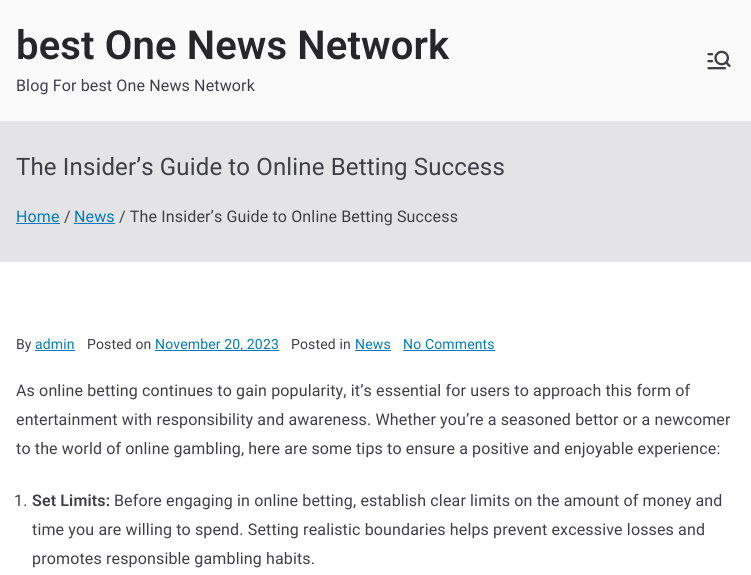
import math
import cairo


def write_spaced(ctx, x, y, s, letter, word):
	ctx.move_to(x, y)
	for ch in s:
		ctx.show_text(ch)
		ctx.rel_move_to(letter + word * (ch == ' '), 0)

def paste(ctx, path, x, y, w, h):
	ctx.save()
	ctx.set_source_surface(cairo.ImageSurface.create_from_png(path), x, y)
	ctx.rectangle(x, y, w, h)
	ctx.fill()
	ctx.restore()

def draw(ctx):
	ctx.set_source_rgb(0.98, 0.98, 0.98)
	ctx.paint()
	ctx.set_source_rgb(0.894, 0.894, 0.906)
	ctx.rectangle(0, 121, 751, 141)
	ctx.fill()
	ctx.select_font_face('Roboto SemiBold')
	ctx.set_font_size(40)
	ctx.set_source_rgb(0.153, 0.153, 0.165)
	write_spaced(ctx, 16, 59, 'best One News Network', 0.15, 0)
	ctx.select_font_face('Roboto')
	ctx.set_font_size(16)
	ctx.set_source_rgb(0.247, 0.247, 0.275)
	write_spaced(ctx, 16, 91, 'Blog For best One News Network', 0.15, 0)
	paste(ctx, 'media/1.png', 707, 50, 24, 20)
	ctx.set_font_size(24)
	write_spaced(ctx, 16, 175, 'The Insider’s Guide to Online Betting Success', 0.15, 0)
	ctx.set_font_size(16)
	ctx.set_source_rgb(0.008, 0.478, 0.733)
	write_spaced(ctx, 16, 222, 'Home', 0.15, 0)
	ctx.rectangle(16, 223, 44, 1)
	ctx.fill()
	ctx.set_source_rgb(0.247, 0.247, 0.275)
	write_spaced(ctx, 64, 222, '/', 0.15, 0)
	ctx.set_source_rgb(0.008, 0.478, 0.733)
	write_spaced(ctx, 74, 222, 'News', 0.15, 0)
	ctx.rectangle(74, 223, 41, 1)
	ctx.fill()
	ctx.set_source_rgb(0.247, 0.247, 0.275)
	write_spaced(ctx, 119, 222, '/ The Insider’s Guide to Online Betting Success', 0.15, 0)
	ctx.set_source_rgb(1, 1, 1)
	ctx.rectangle(0, 262, 751, 313)
	ctx.fill()
	ctx.set_font_size(14)
	ctx.set_source_rgb(0.247, 0.247, 0.275)
	write_spaced(ctx, 16, 349, 'By', 0.15, 0)
	ctx.set_source_rgb(0.008, 0.478, 0.733)
	write_spaced(ctx, 35, 349, 'admin', 0.15, 0)
	ctx.rectangle(35, 350, 40, 1)
	ctx.fill()
	ctx.set_source_rgb(0.247, 0.247, 0.275)
	write_spaced(ctx, 87, 349, 'Posted on', 0.15, 0)
	ctx.set_source_rgb(0.008, 0.478, 0.733)
	ctx.rectangle(155, 350, 124, 1)
	ctx.fill()
	write_spaced(ctx, 155, 349, 'November 20, 2023', 0.15, 0)
	ctx.set_source_rgb(0.247, 0.247, 0.275)
	write_spaced(ctx, 291, 349, 'Posted in', 0.15, 0)
	ctx.set_source_rgb(0.008, 0.478, 0.733)
	write_spaced(ctx, 355, 349, 'News', 0.15, 0)
	ctx.rectangle(355, 350, 36, 1)
	ctx.fill()
	write_spaced(ctx, 403, 349, 'No Comments', 0.15, 0)
	ctx.rectangle(403, 350, 92, 1)
	ctx.fill()
	ctx.set_font_size(16)
	ctx.set_source_rgb(0.247, 0.247, 0.275)
	for x, y, s in [
		(16, 396, 'As online betting continues to gain popularity, it’s essential for users to approach this form of'),
		(16, 425, 'entertainment with responsibility and awareness. Whether you’re a seasoned bettor or a newcomer'),
		(16, 454, 'to the world of online gambling, here are some tips to ensure a positive and enjoyable experience:'),
		(14, 506, '1.'),
	]:
		write_spaced(ctx, x, y, s, 0.15, 0)
	ctx.select_font_face('Roboto SemiBold')
	write_spaced(ctx, 32, 506, 'Set Limits:', 0.15, 0)
	ctx.select_font_face('Roboto')
	for x, y, s in [
		(114, 506, 'Before engaging in online betting, establish clear limits on the amount of money and'),
		(32, 535, 'time you are willing to spend. Setting realistic boundaries helps prevent excessive losses and'),
		(32, 564, 'promotes responsible gambling habits.'),
	]:
		write_spaced(ctx, x, y, s, 0.15, 0)


surface = cairo.ImageSurface(cairo.FORMAT_RGB24, 751, 575)
ctx = cairo.Context(surface)
options = cairo.FontOptions()
options.set_hint_metrics(cairo.HINT_METRICS_OFF)
options.set_hint_style(cairo.HINT_STYLE_NONE)
ctx.set_font_options(options)
ctx.set_miter_limit(4)
draw(ctx)
surface.write_to_png('image.png')
